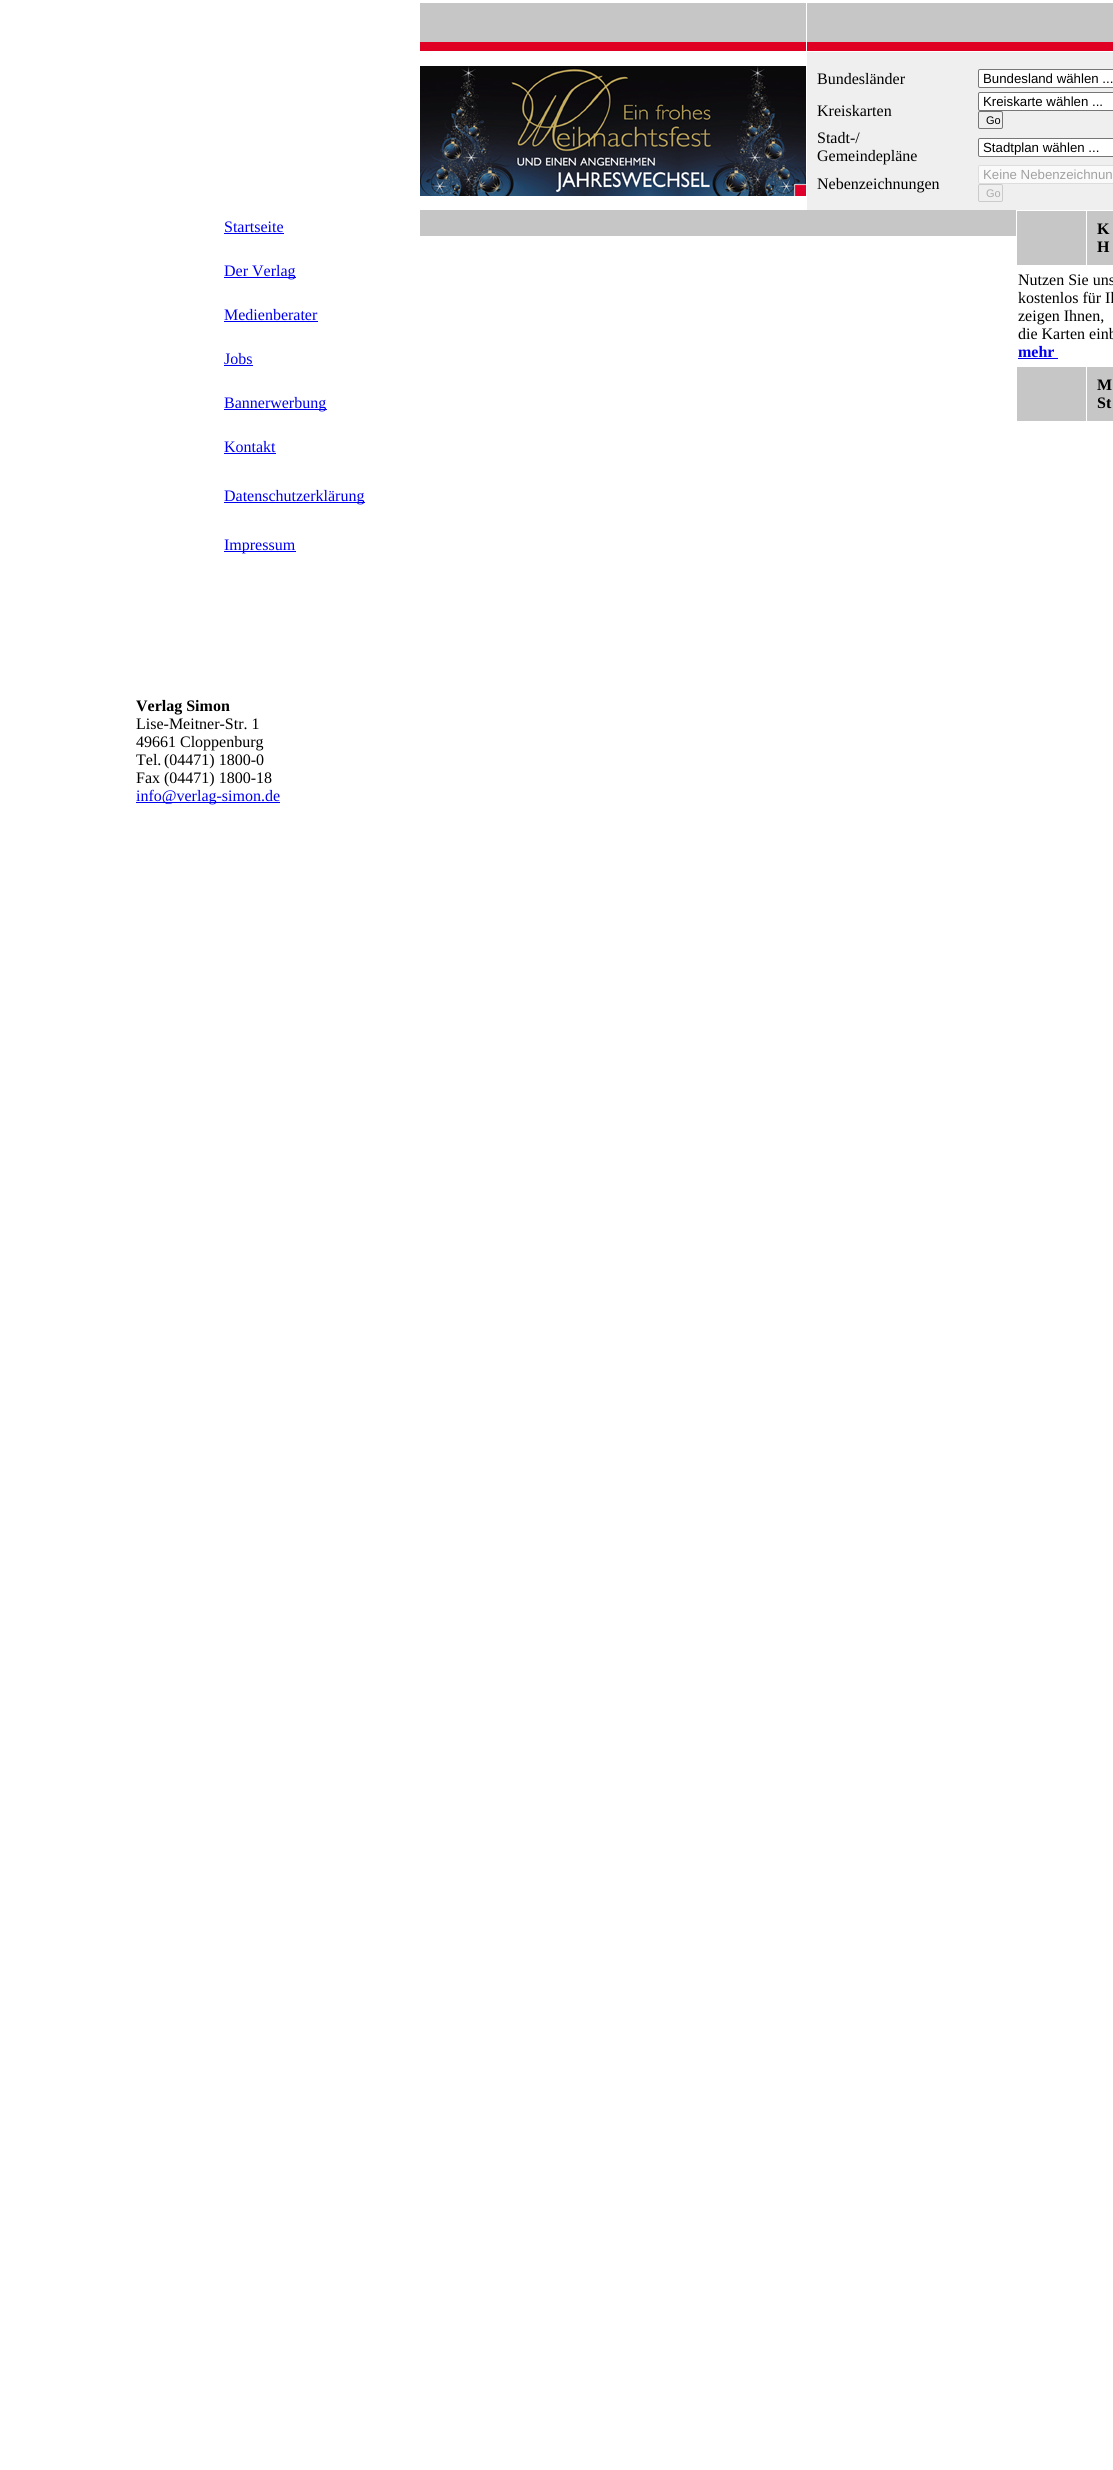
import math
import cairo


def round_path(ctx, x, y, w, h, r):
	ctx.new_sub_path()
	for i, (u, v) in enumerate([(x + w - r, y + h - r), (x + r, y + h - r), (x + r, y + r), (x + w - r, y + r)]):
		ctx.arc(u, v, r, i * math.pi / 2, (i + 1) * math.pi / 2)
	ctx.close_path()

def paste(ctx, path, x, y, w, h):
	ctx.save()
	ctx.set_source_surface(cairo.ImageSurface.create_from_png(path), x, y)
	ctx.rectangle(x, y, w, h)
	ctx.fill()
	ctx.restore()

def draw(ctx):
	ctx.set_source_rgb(1, 1, 1)
	ctx.paint()
	ctx.set_source_rgb(0.776, 0.776, 0.776)
	ctx.rectangle(420, 3, 386, 39)
	ctx.rectangle(807, 3, 306, 39)
	ctx.fill()
	ctx.set_source_rgb(0.875, 0, 0.141)
	ctx.rectangle(420, 42, 386, 9)
	ctx.rectangle(807, 42, 306, 9)
	ctx.fill()
	paste(ctx, 'media/1.png', 420, 66, 386, 130)
	ctx.set_source_rgb(0.937, 0.937, 0.937)
	ctx.rectangle(807, 52, 306, 158)
	ctx.fill()
	ctx.select_font_face('Liberation Serif')
	ctx.set_font_size(16)
	ctx.set_source_rgb(0, 0, 0)
	ctx.move_to(817, 84)
	ctx.show_text('Bundesländer')
	ctx.set_source_rgb(1, 1, 1)
	round_path(ctx, 978.5, 69.5, 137, 18, 1.5)
	ctx.fill_preserve()
	ctx.set_source_rgb(0.463, 0.463, 0.463)
	ctx.set_line_width(1)
	ctx.stroke()
	ctx.select_font_face('Liberation Sans')
	ctx.set_font_size(13.25)
	ctx.set_source_rgb(0, 0, 0)
	ctx.move_to(983, 83)
	ctx.show_text('Bundesland wählen ...')
	ctx.select_font_face('Liberation Serif')
	ctx.set_font_size(16)
	ctx.move_to(817, 116)
	ctx.show_text('Kreiskarten')
	ctx.set_source_rgb(1, 1, 1)
	round_path(ctx, 978.5, 92.5, 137, 18, 1.5)
	ctx.fill_preserve()
	ctx.set_source_rgb(0.463, 0.463, 0.463)
	ctx.stroke()
	ctx.select_font_face('Liberation Sans')
	ctx.set_font_size(13.25)
	ctx.set_source_rgb(0, 0, 0)
	ctx.move_to(983, 106)
	ctx.show_text('Kreiskarte wählen ...')
	round_path(ctx, 978.5, 111.5, 24, 17, 1.5)
	ctx.set_source_rgb(0.463, 0.463, 0.463)
	ctx.stroke()
	ctx.set_font_size(11)
	ctx.set_source_rgb(0, 0, 0)
	ctx.move_to(986, 124)
	ctx.show_text('Go')
	ctx.select_font_face('Liberation Serif')
	ctx.set_font_size(16)
	ctx.move_to(817, 143)
	ctx.show_text('Stadt-/')
	ctx.move_to(817, 161)
	ctx.show_text('Gemeindepläne')
	ctx.set_source_rgb(1, 1, 1)
	round_path(ctx, 978.5, 138.5, 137, 18, 1.5)
	ctx.fill_preserve()
	ctx.set_source_rgb(0.463, 0.463, 0.463)
	ctx.stroke()
	ctx.select_font_face('Liberation Sans')
	ctx.set_font_size(13.25)
	ctx.set_source_rgb(0, 0, 0)
	ctx.move_to(983, 152)
	ctx.show_text('Stadtplan wählen ...')
	ctx.select_font_face('Liberation Serif')
	ctx.set_font_size(16)
	ctx.move_to(817, 189)
	ctx.show_text('Nebenzeichnungen')
	ctx.set_source_rgb(0.98, 0.98, 0.98)
	round_path(ctx, 978.5, 165.5, 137, 18, 1.5)
	ctx.fill_preserve()
	ctx.set_source_rgb(0.867, 0.867, 0.867)
	ctx.stroke()
	ctx.select_font_face('Liberation Sans')
	ctx.set_font_size(13.25)
	ctx.set_source_rgb(0.631, 0.631, 0.631)
	ctx.move_to(983, 179)
	ctx.show_text('Keine Nebenzeichnun')
	round_path(ctx, 978.5, 184.5, 24, 17, 1.5)
	ctx.set_source_rgb(0.796, 0.796, 0.796)
	ctx.stroke()
	ctx.set_font_size(11)
	ctx.set_source_rgb(0.675, 0.675, 0.675)
	ctx.move_to(986, 197)
	ctx.show_text('Go')
	ctx.select_font_face('Liberation Serif')
	ctx.set_font_size(16)
	ctx.set_source_rgb(0, 0, 0.933)
	ctx.move_to(224, 232)
	ctx.show_text('Startseite')
	ctx.rectangle(224, 233, 60, 1)
	ctx.fill()
	ctx.rectangle(224, 277, 72, 1)
	ctx.fill()
	ctx.move_to(224, 276)
	ctx.show_text('Der Verlag')
	ctx.move_to(224, 320)
	ctx.show_text('Medienberater')
	ctx.rectangle(224, 321, 94, 1)
	ctx.fill()
	ctx.move_to(224, 364)
	ctx.show_text('Jobs')
	ctx.rectangle(224, 365, 29, 1)
	ctx.fill()
	ctx.rectangle(224, 409, 103, 1)
	ctx.fill()
	ctx.move_to(224, 408)
	ctx.show_text('Bannerwerbung')
	ctx.move_to(224, 452)
	ctx.show_text('Kontakt')
	ctx.rectangle(224, 453, 52, 1)
	ctx.fill()
	ctx.rectangle(224, 502, 141, 1)
	ctx.fill()
	ctx.move_to(224, 501)
	ctx.show_text('Datenschutzerklärung')
	ctx.rectangle(224, 551, 72, 1)
	ctx.fill()
	ctx.move_to(224, 550)
	ctx.show_text('Impressum')
	ctx.set_source_rgb(0.776, 0.776, 0.776)
	ctx.rectangle(420, 210, 596, 26)
	ctx.rectangle(1017, 211, 69, 54)
	ctx.rectangle(1087, 211, 26, 54)
	ctx.fill()
	ctx.select_font_face('Liberation Serif', cairo.FONT_SLANT_NORMAL, cairo.FONT_WEIGHT_BOLD)
	ctx.set_source_rgb(0, 0, 0)
	ctx.move_to(1097, 234)
	ctx.show_text('K')
	ctx.move_to(1097, 252)
	ctx.show_text('H')
	ctx.select_font_face('Liberation Serif')
	for x, y, s in [
		(1018, 285, 'Nutzen Sie uns'),
		(1018, 303, 'kostenlos für Ih'),
		(1018, 321, 'zeigen Ihnen,'),
		(1018, 339, 'die Karten einb'),
	]:
		ctx.move_to(x, y)
		ctx.show_text(s)
	ctx.select_font_face('Liberation Serif', cairo.FONT_SLANT_NORMAL, cairo.FONT_WEIGHT_BOLD)
	ctx.set_source_rgb(0, 0, 0.933)
	ctx.move_to(1018, 357)
	ctx.show_text('mehr')
	ctx.rectangle(1018, 358, 40, 1)
	ctx.fill()
	ctx.set_source_rgb(0.776, 0.776, 0.776)
	ctx.rectangle(1017, 367, 69, 54)
	ctx.rectangle(1087, 367, 26, 54)
	ctx.fill()
	ctx.set_source_rgb(0, 0, 0)
	for x, y, s in [
		(1097, 390, 'M'),
		(1097, 408, 'St'),
		(136, 711, 'Verlag Simon'),
	]:
		ctx.move_to(x, y)
		ctx.show_text(s)
	ctx.select_font_face('Liberation Serif')
	for x, y, s in [
		(136, 729, 'Lise-Meitner-Str. 1'),
		(136, 747, '49661 Cloppenburg'),
		(136, 765, 'Tel.'),
		(164, 765, '(04471) 1800-0'),
		(136, 783, 'Fax'),
		(164, 783, '(04471) 1800-18'),
	]:
		ctx.move_to(x, y)
		ctx.show_text(s)
	ctx.set_source_rgb(0, 0, 0.933)
	ctx.rectangle(136, 802, 144, 1)
	ctx.fill()
	ctx.move_to(136, 801)
	ctx.show_text('info@verlag-simon.de')


surface = cairo.ImageSurface(cairo.FORMAT_RGB24, 1113, 2470)
ctx = cairo.Context(surface)
options = cairo.FontOptions()
options.set_hint_metrics(cairo.HINT_METRICS_OFF)
options.set_hint_style(cairo.HINT_STYLE_NONE)
ctx.set_font_options(options)
ctx.set_miter_limit(4)
draw(ctx)
surface.write_to_png('image.png')
